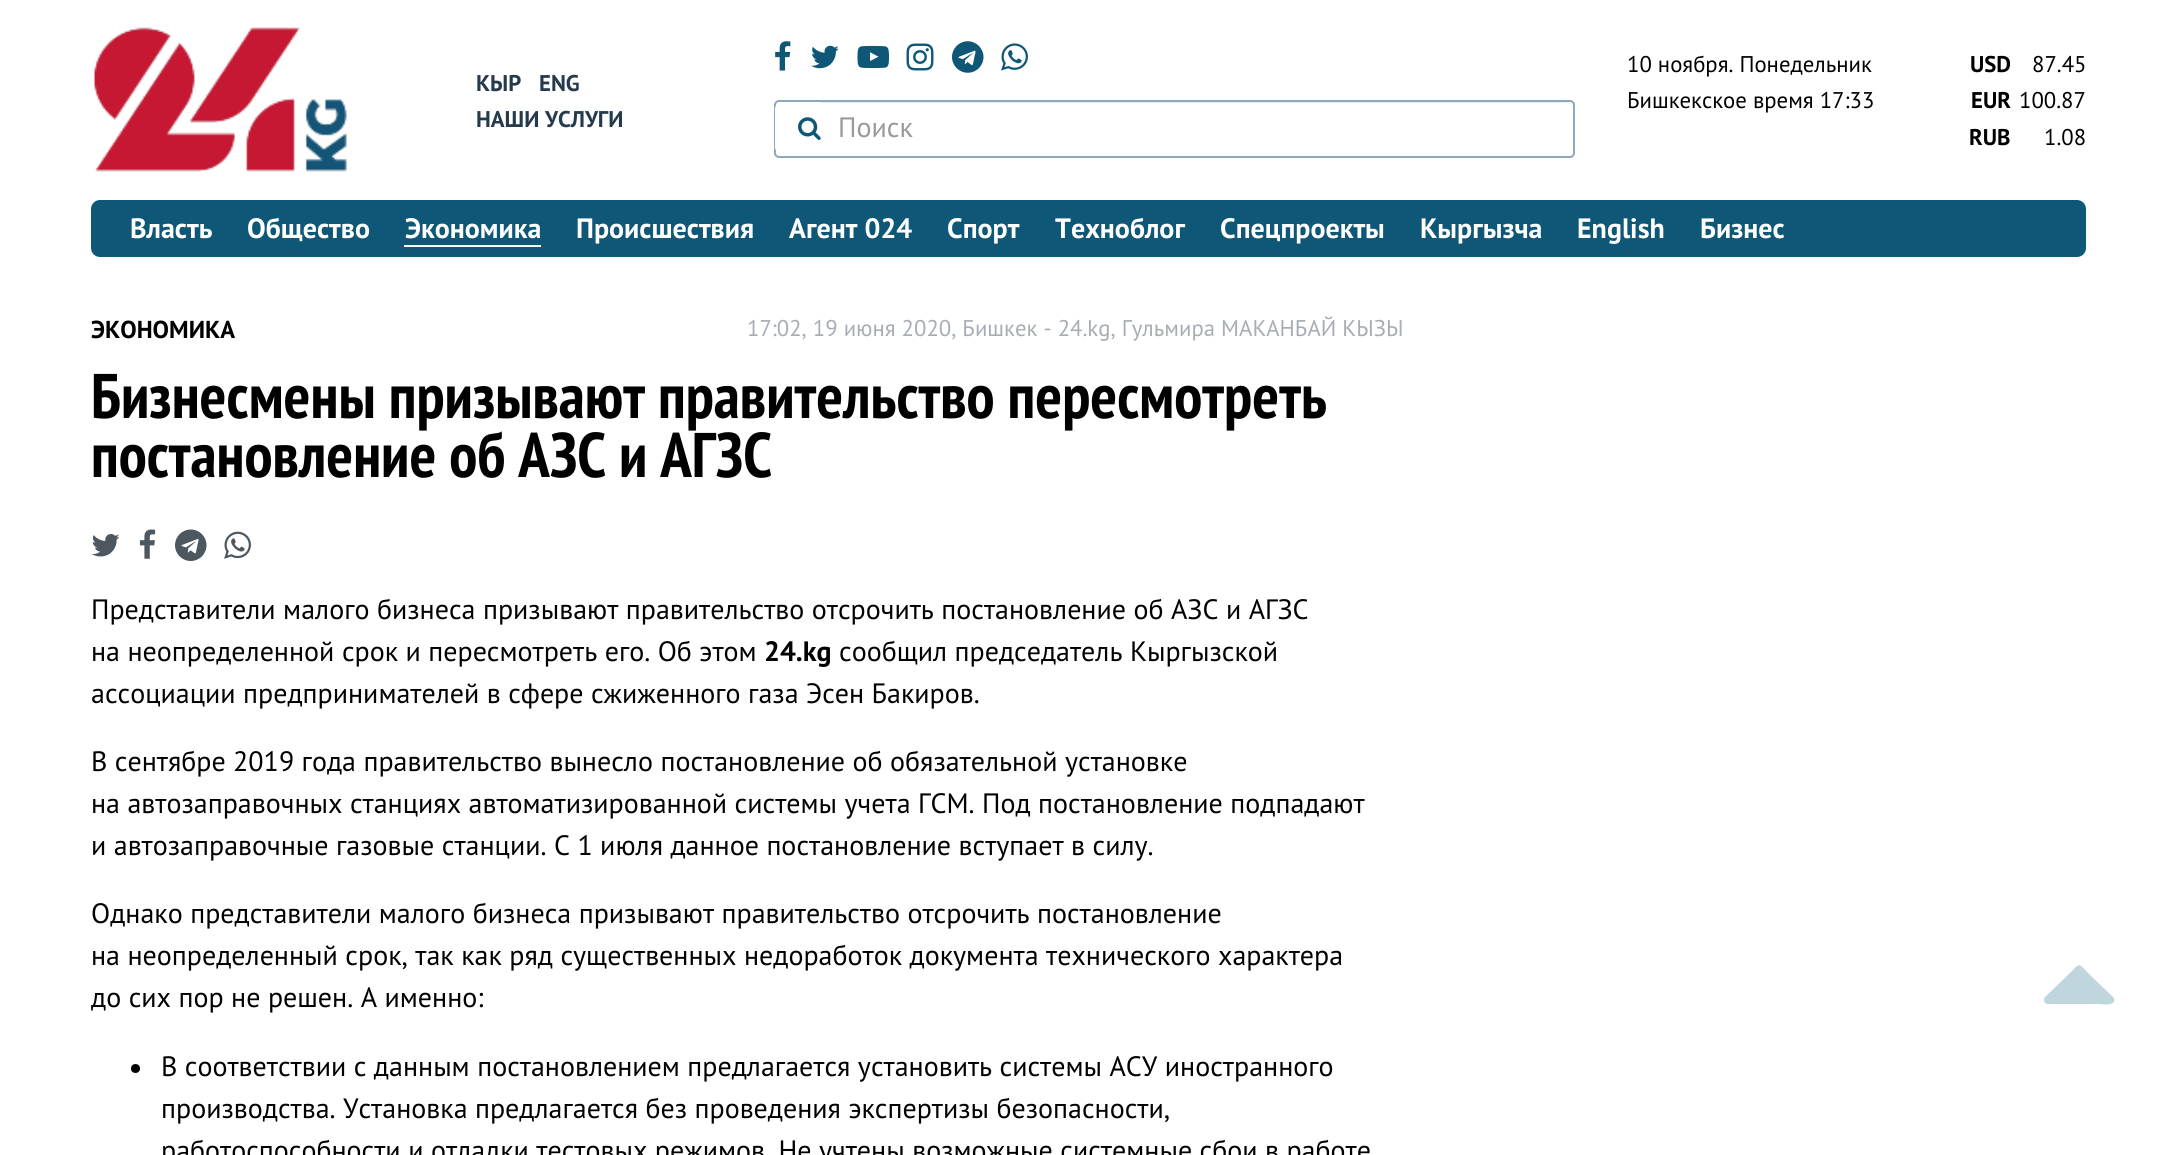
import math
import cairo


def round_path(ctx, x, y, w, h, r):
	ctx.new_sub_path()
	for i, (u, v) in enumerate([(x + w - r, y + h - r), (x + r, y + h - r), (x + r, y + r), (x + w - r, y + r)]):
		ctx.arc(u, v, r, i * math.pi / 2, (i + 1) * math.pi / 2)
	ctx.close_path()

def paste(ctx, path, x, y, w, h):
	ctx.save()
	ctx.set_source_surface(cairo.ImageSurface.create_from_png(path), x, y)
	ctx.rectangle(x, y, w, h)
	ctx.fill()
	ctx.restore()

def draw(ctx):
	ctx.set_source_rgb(1, 1, 1)
	ctx.paint()
	paste(ctx, 'media/1.png', 94, 27, 253, 145)
	ctx.select_font_face('PT Sans', cairo.FONT_SLANT_NORMAL, cairo.FONT_WEIGHT_BOLD)
	ctx.set_font_size(22.75)
	ctx.set_source_rgb(0.145, 0.231, 0.302)
	for x, y, s in [
		(476, 91, 'КЫР'),
		(539, 91, 'ENG'),
		(476, 127, 'НАШИ УСЛУГИ'),
	]:
		ctx.move_to(x, y)
		ctx.show_text(s)
	paste(ctx, 'media/2.png', 775, 41, 16, 30)
	paste(ctx, 'media/3.png', 811, 45, 28, 24)
	paste(ctx, 'media/4.png', 857, 45, 32, 24)
	paste(ctx, 'media/5.png', 906, 43, 28, 28)
	paste(ctx, 'media/6.png', 952, 41, 32, 32)
	paste(ctx, 'media/7.png', 1001, 43, 27, 28)
	round_path(ctx, 775, 101, 799, 56, 4)
	ctx.set_source_rgb(0.557, 0.655, 0.737)
	ctx.stroke()
	ctx.set_source_rgb(1, 1, 1)
	ctx.new_path()
	ctx.move_to(782, 102)
	ctx.line_to(823, 102)
	ctx.line_to(823, 154)
	ctx.line_to(782, 154)
	ctx.curve_to(778, 154, 775, 151, 775, 147)
	ctx.line_to(775, 109)
	ctx.curve_to(775, 105, 778, 102, 782, 102)
	ctx.close_path()
	ctx.fill()
	paste(ctx, 'media/8.png', 798, 117, 23, 23)
	ctx.set_source_rgb(0.925, 0.925, 0.925)
	ctx.new_path()
	ctx.move_to(821, 103)
	ctx.line_to(1566, 103)
	ctx.curve_to(1570, 103, 1573, 106, 1573, 110)
	ctx.curve_to(1573, 106, 1571, 102, 1566, 102)
	ctx.line_to(821, 102)
	ctx.close_path()
	ctx.fill()
	ctx.select_font_face('PT Sans')
	ctx.set_font_size(28)
	ctx.set_source_rgb(0.6, 0.6, 0.6)
	ctx.move_to(838, 137)
	ctx.show_text('Поиск')
	ctx.set_font_size(22.75)
	ctx.set_source_rgb(0, 0, 0)
	ctx.move_to(1627, 72)
	ctx.show_text('10 ноября. Понедельник')
	ctx.move_to(1627, 108)
	ctx.show_text('Бишкекское время 17:33')
	ctx.select_font_face('PT Sans', cairo.FONT_SLANT_NORMAL, cairo.FONT_WEIGHT_BOLD)
	ctx.move_to(1970, 72)
	ctx.show_text('USD')
	ctx.select_font_face('PT Sans')
	ctx.move_to(2032, 72)
	ctx.show_text('87.45')
	ctx.select_font_face('PT Sans', cairo.FONT_SLANT_NORMAL, cairo.FONT_WEIGHT_BOLD)
	ctx.move_to(1971, 108)
	ctx.show_text('EUR')
	ctx.select_font_face('PT Sans')
	ctx.move_to(2019, 108)
	ctx.show_text('100.87')
	ctx.select_font_face('PT Sans', cairo.FONT_SLANT_NORMAL, cairo.FONT_WEIGHT_BOLD)
	ctx.move_to(1969, 145)
	ctx.show_text('RUB')
	ctx.select_font_face('PT Sans')
	ctx.move_to(2044, 145)
	ctx.show_text('1.08')
	ctx.set_source_rgb(0.055, 0.341, 0.467)
	round_path(ctx, 91, 200, 1995, 57, 9)
	ctx.fill()
	ctx.select_font_face('PT Sans', cairo.FONT_SLANT_NORMAL, cairo.FONT_WEIGHT_BOLD)
	ctx.set_font_size(28)
	ctx.set_source_rgb(1, 1, 1)
	for x, y, s in [
		(130, 238, 'Власть'),
		(247, 238, 'Общество'),
		(405, 238, 'Экономика'),
	]:
		ctx.move_to(x, y)
		ctx.show_text(s)
	ctx.rectangle(404, 245, 137, 2)
	ctx.fill()
	for x, y, s in [
		(576, 238, 'Происшествия'),
		(789, 238, 'Агент 024'),
		(947, 238, 'Спорт'),
		(1055, 238, 'Техноблог'),
		(1220, 238, 'Спецпроекты'),
		(1420, 238, 'Кыргызча'),
		(1577, 238, 'English'),
		(1700, 238, 'Бизнес'),
	]:
		ctx.move_to(x, y)
		ctx.show_text(s)
	ctx.set_font_size(24.5)
	ctx.set_source_rgb(0, 0, 0)
	ctx.move_to(91, 338)
	ctx.show_text('ЭКОНОМИКА')
	ctx.select_font_face('PT Sans')
	ctx.set_font_size(22.75)
	ctx.set_source_rgb(0.655, 0.678, 0.706)
	ctx.move_to(747, 336)
	ctx.show_text('17:02, 19 июня 2020, Бишкек - 24.kg, Гульмира МАКАНБАЙ КЫЗЫ')
	ctx.select_font_face('PT Sans Narrow', cairo.FONT_SLANT_NORMAL, cairo.FONT_WEIGHT_BOLD)
	ctx.set_font_size(63)
	ctx.set_source_rgb(0, 0, 0)
	ctx.move_to(91, 418)
	ctx.show_text('Бизнесмены призывают правительство пересмотреть')
	ctx.move_to(91, 477)
	ctx.show_text('постановление об АЗС и АГЗС')
	paste(ctx, 'media/9.png', 92, 534, 28, 23)
	paste(ctx, 'media/10.png', 139, 529, 17, 30)
	paste(ctx, 'media/11.png', 175, 529, 32, 32)
	paste(ctx, 'media/12.png', 224, 531, 27, 28)
	ctx.select_font_face('PT Sans')
	ctx.set_font_size(28)
	ctx.move_to(91, 619)
	ctx.show_text('Представители малого бизнеса призывают правительство отсрочить постановление об АЗС и АГЗС')
	ctx.move_to(91, 661)
	ctx.show_text('на неопределенной срок и пересмотреть его. Об этом')
	ctx.select_font_face('PT Sans', cairo.FONT_SLANT_NORMAL, cairo.FONT_WEIGHT_BOLD)
	ctx.move_to(764, 661)
	ctx.show_text('24.kg')
	ctx.select_font_face('PT Sans')
	for x, y, s in [
		(839, 661, 'сообщил председатель Кыргызской'),
		(91, 703, 'ассоциации предпринимателей в сфере сжиженного газа Эсен Бакиров.'),
		(91, 771, 'В сентябре 2019 года правительство вынесло постановление об обязательной установке'),
		(91, 813, 'на автозаправочных станциях автоматизированной системы учета ГСМ. Под постановление подпадают'),
		(91, 855, 'и автозаправочные газовые станции. С 1 июля данное постановление вступает в силу.'),
		(91, 923, 'Однако представители малого бизнеса призывают правительство отсрочить постановление'),
		(91, 965, 'на неопределенный срок, так как ряд существенных недоработок документа технического характера'),
		(91, 1007, 'до сих пор не решен. А именно:'),
	]:
		ctx.move_to(x, y)
		ctx.show_text(s)
	ctx.new_path()
	ctx.arc(135.5, 1068.5, 4.5, 0, 2 * math.pi)
	ctx.fill()
	for x, y, s in [
		(161, 1076, 'В соответствии с данным постановлением предлагается установить системы АСУ иностранного'),
		(161, 1118, 'производства. Установка предлагается без проведения экспертизы безопасности,'),
		(161, 1160, 'работоспособности и отладки тестовых режимов. Не учтены возможные системные сбои в работе'),
	]:
		ctx.move_to(x, y)
		ctx.show_text(s)
	ctx.set_source_rgb(0.753, 0.839, 0.875)
	ctx.new_path()
	ctx.move_to(2113, 997)
	ctx.line_to(2114, 998)
	ctx.curve_to(2117, 1007, 2101, 1004, 2099, 1004)
	ctx.line_to(2048, 1004)
	ctx.curve_to(2044, 1004, 2043, 999, 2045, 997)
	ctx.line_to(2071, 972)
	ctx.curve_to(2079, 963, 2079, 963, 2087, 972)
	ctx.close_path()
	ctx.fill()


surface = cairo.ImageSurface(cairo.FORMAT_RGB24, 2177, 1155)
ctx = cairo.Context(surface)
options = cairo.FontOptions()
options.set_hint_metrics(cairo.HINT_METRICS_OFF)
options.set_hint_style(cairo.HINT_STYLE_NONE)
ctx.set_font_options(options)
ctx.set_miter_limit(4)
draw(ctx)
surface.write_to_png('image.png')
